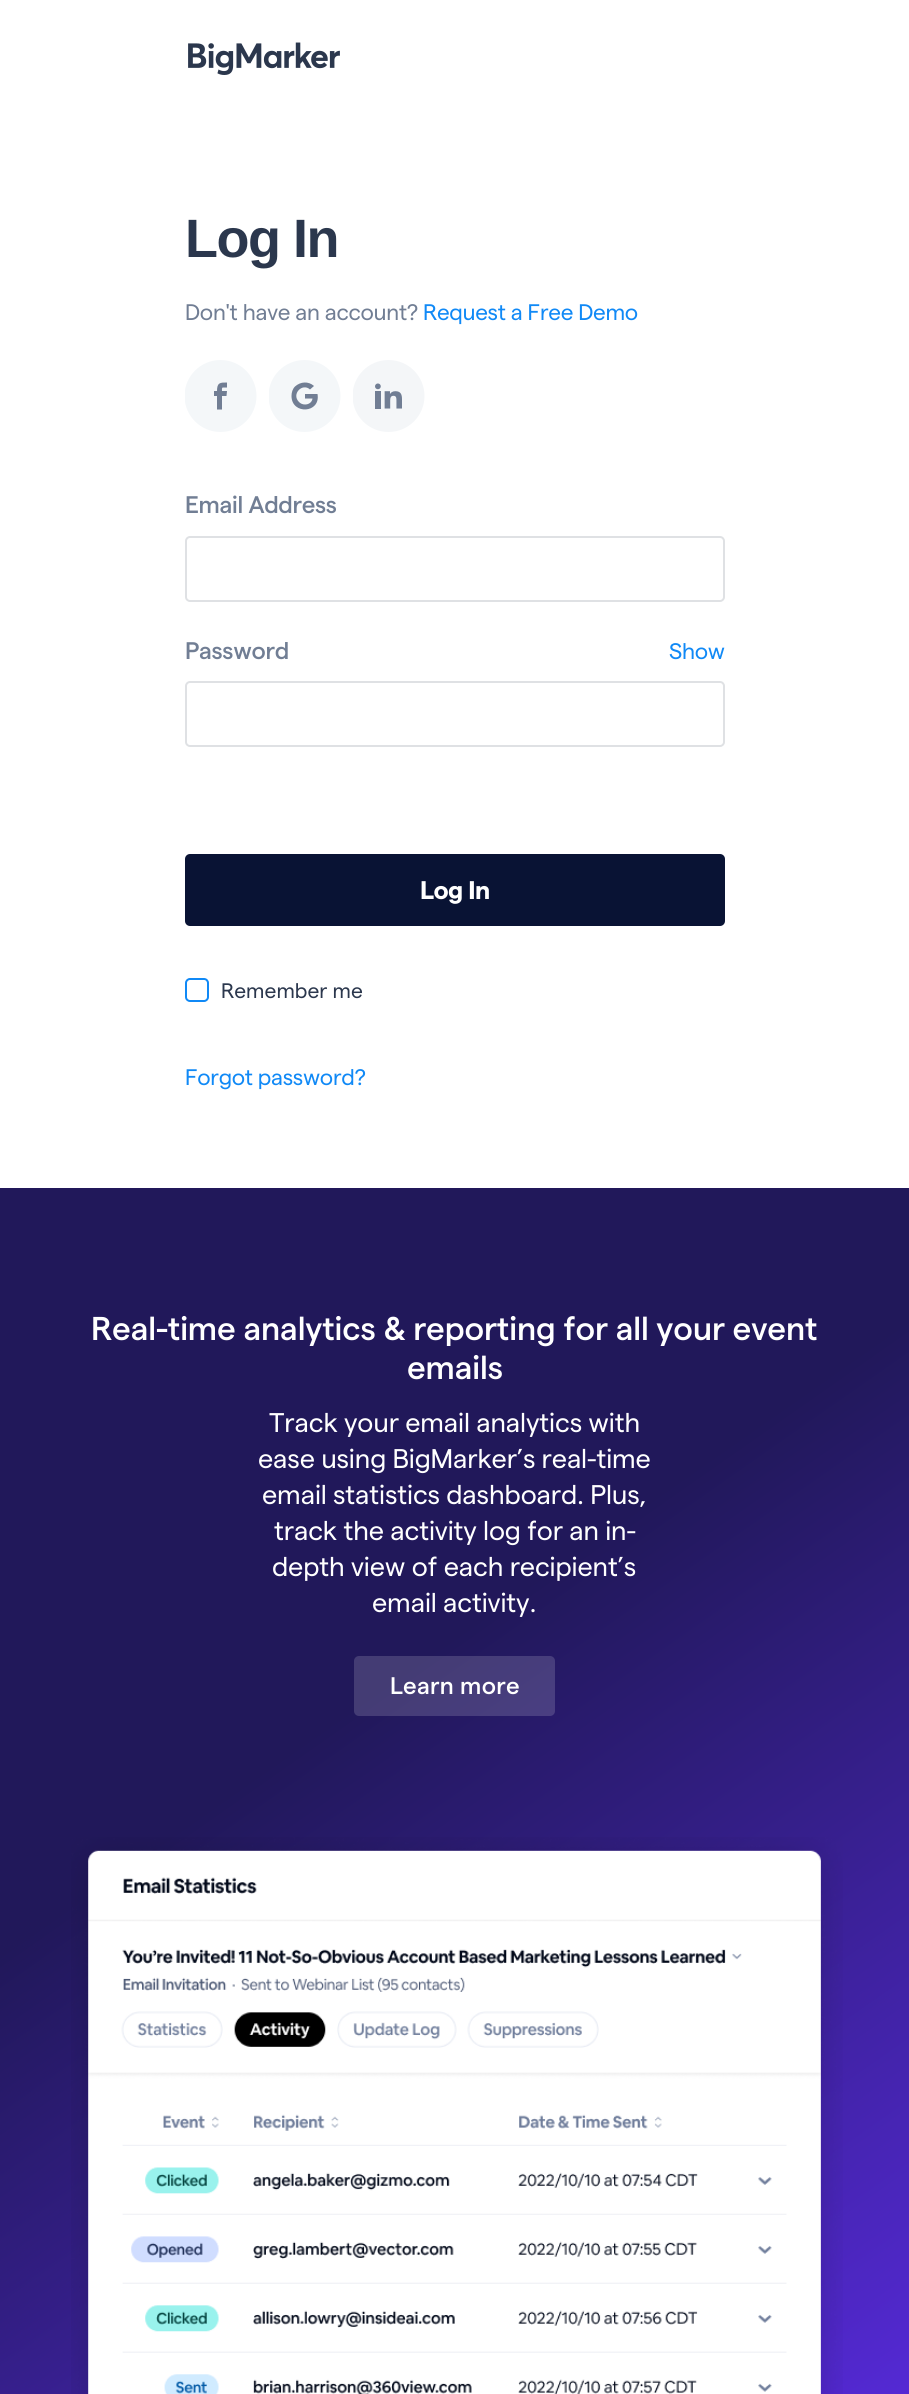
import math
import cairo


def write_spaced(ctx, x, y, s, letter, word):
	ctx.move_to(x, y)
	for ch in s:
		ctx.show_text(ch)
		ctx.rel_move_to(letter + word * (ch == ' '), 0)

def round_path(ctx, x, y, w, h, r):
	ctx.new_sub_path()
	for i, (u, v) in enumerate([(x + w - r, y + h - r), (x + r, y + h - r), (x + r, y + r), (x + w - r, y + r)]):
		ctx.arc(u, v, r, i * math.pi / 2, (i + 1) * math.pi / 2)
	ctx.close_path()

def paste(ctx, path, x, y, w, h):
	ctx.save()
	ctx.set_source_surface(cairo.ImageSurface.create_from_png(path), x, y)
	ctx.rectangle(x, y, w, h)
	ctx.fill()
	ctx.restore()

def draw(ctx):
	ctx.set_source_rgb(1, 1, 1)
	ctx.paint()
	paste(ctx, 'media/1.png', 188, 42, 152, 33)
	ctx.select_font_face('Liberation Sans', cairo.FONT_SLANT_NORMAL, cairo.FONT_WEIGHT_BOLD)
	ctx.set_font_size(54)
	ctx.set_source_rgb(0.169, 0.216, 0.302)
	write_spaced(ctx, 185, 257, 'Log In', -1.5, 0)
	ctx.select_font_face('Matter')
	ctx.set_font_size(22.5)
	ctx.set_source_rgb(0.443, 0.494, 0.58)
	write_spaced(ctx, 185, 320, 'Don\'t have an account?', -0.3, 0)
	ctx.set_source_rgb(0.063, 0.537, 0.961)
	write_spaced(ctx, 423, 320, 'Request a Free Demo', -0.3, 0)
	ctx.save()
	ctx.rectangle(185, 360, 72, 72)
	ctx.clip()
	ctx.set_source_rgb(0.957, 0.965, 0.973)
	ctx.arc(220.5, 396, 36, 0, 2 * math.pi)
	ctx.fill()
	ctx.restore()
	ctx.set_source_rgb(0.443, 0.494, 0.58)
	ctx.new_path()
	ctx.move_to(223, 387.5)
	ctx.line_to(227, 387.5)
	ctx.line_to(227, 382.5)
	ctx.curve_to(220, 382.5, 217, 382.5, 217, 391)
	ctx.line_to(214, 391)
	ctx.line_to(214, 396)
	ctx.line_to(217, 396)
	ctx.line_to(217, 409.5)
	ctx.line_to(222, 409.5)
	ctx.line_to(222, 396)
	ctx.line_to(226.5, 396)
	ctx.line_to(227, 391)
	ctx.line_to(222, 391)
	ctx.curve_to(222, 390, 221.5, 387.5, 223, 387.5)
	ctx.close_path()
	ctx.fill()
	ctx.save()
	ctx.rectangle(269, 360, 72, 72)
	ctx.clip()
	ctx.set_source_rgb(0.957, 0.965, 0.973)
	ctx.arc(304.5, 396, 36, 0, 2 * math.pi)
	ctx.fill()
	ctx.restore()
	ctx.new_path()
	ctx.move_to(305, 394)
	ctx.line_to(305, 398.5)
	ctx.line_to(312.5, 398.5)
	ctx.curve_to(312, 402.5, 308.5, 404.5, 305, 404.5)
	ctx.curve_to(302.5, 404.5, 300.5, 403.5, 299, 402)
	ctx.curve_to(291, 394, 302.5, 382.5, 310, 389.5)
	ctx.line_to(314, 386)
	ctx.curve_to(308.5, 381, 300.5, 381.5, 295, 386.5)
	ctx.curve_to(292.5, 389, 291.5, 392.5, 291.5, 396)
	ctx.curve_to(291.5, 415, 321, 413.5, 317.5, 394)
	ctx.close_path()
	ctx.fill()
	paste(ctx, 'media/2.png', 353, 360, 72, 72)
	ctx.select_font_face('Matter Medium')
	ctx.set_font_size(24)
	write_spaced(ctx, 185, 513, 'Email Address', -0.3, 0)
	round_path(ctx, 186, 537, 538, 64, 4)
	ctx.set_source_rgb(0.875, 0.882, 0.894)
	ctx.stroke()
	ctx.set_source_rgb(0.443, 0.494, 0.58)
	write_spaced(ctx, 185, 659, 'Password', -0.3, 0)
	ctx.select_font_face('Matter')
	ctx.set_font_size(22.5)
	ctx.set_source_rgb(0.063, 0.537, 0.961)
	write_spaced(ctx, 669, 659, 'Show', -0.3, 0)
	round_path(ctx, 186, 682, 538, 64, 4)
	ctx.set_source_rgb(0.875, 0.882, 0.894)
	ctx.stroke()
	ctx.set_source_rgb(0.039, 0.075, 0.204)
	round_path(ctx, 185, 854, 540, 72, 5)
	ctx.fill()
	ctx.select_font_face('Matter', cairo.FONT_SLANT_NORMAL, cairo.FONT_WEIGHT_BOLD)
	ctx.set_font_size(25.5)
	ctx.set_source_rgb(1, 1, 1)
	write_spaced(ctx, 420, 899, 'Log In', -0.5, 0)
	round_path(ctx, 186, 979, 22, 22, 4)
	ctx.set_source_rgb(0.063, 0.537, 0.961)
	ctx.stroke()
	ctx.select_font_face('Matter')
	ctx.set_font_size(21)
	ctx.set_source_rgb(0.169, 0.216, 0.302)
	ctx.move_to(221, 998)
	ctx.show_text('Remember me')
	ctx.set_font_size(22.5)
	ctx.set_source_rgb(0.063, 0.537, 0.961)
	write_spaced(ctx, 185, 1085, 'Forgot password?', -0.3, 0)
	gradient = cairo.LinearGradient(-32, 1211, 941, 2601)
	gradient.add_color_stop_rgba(0, 0.129, 0.094, 0.353, 1)
	gradient.add_color_stop_rgba(0.37, 0.129, 0.094, 0.353, 1)
	gradient.add_color_stop_rgba(1, 0.373, 0.176, 0.933, 1)
	ctx.set_source(gradient)
	ctx.rectangle(0, 1188, 909, 1206)
	ctx.fill()
	ctx.select_font_face('Matter Medium')
	ctx.set_font_size(33)
	ctx.set_source_rgb(1, 1, 1)
	write_spaced(ctx, 91, 1340, 'Real-time analytics & reporting for all your event', -0.15, 0)
	write_spaced(ctx, 407, 1379, 'emails', -0.15, 0)
	ctx.select_font_face('Matter')
	ctx.set_font_size(27)
	for x, y, s in [
		(269, 1432, 'Track your email analytics with'),
		(258, 1468, 'ease using BigMarker’s real-time'),
		(262, 1504, 'email statistics dashboard. Plus,'),
		(274, 1540, 'track the activity log for an in-'),
		(272, 1576, 'depth view of each recipient’s'),
		(372, 1612, 'email activity.'),
	]:
		write_spaced(ctx, x, y, s, -0.15, 0)
	ctx.set_source_rgba(1, 1, 1, 0.16)
	round_path(ctx, 354, 1656, 201, 60, 5)
	ctx.fill()
	ctx.select_font_face('Matter Medium')
	ctx.set_font_size(24)
	ctx.set_source_rgb(1, 1, 1)
	write_spaced(ctx, 390, 1694, 'Learn more', 0.25, 0)
	paste(ctx, 'media/3.png', 71, 1837, 772, 557)


surface = cairo.ImageSurface(cairo.FORMAT_RGB24, 909, 2394)
ctx = cairo.Context(surface)
options = cairo.FontOptions()
options.set_hint_metrics(cairo.HINT_METRICS_OFF)
options.set_hint_style(cairo.HINT_STYLE_NONE)
ctx.set_font_options(options)
ctx.set_miter_limit(4)
draw(ctx)
surface.write_to_png('image.png')
